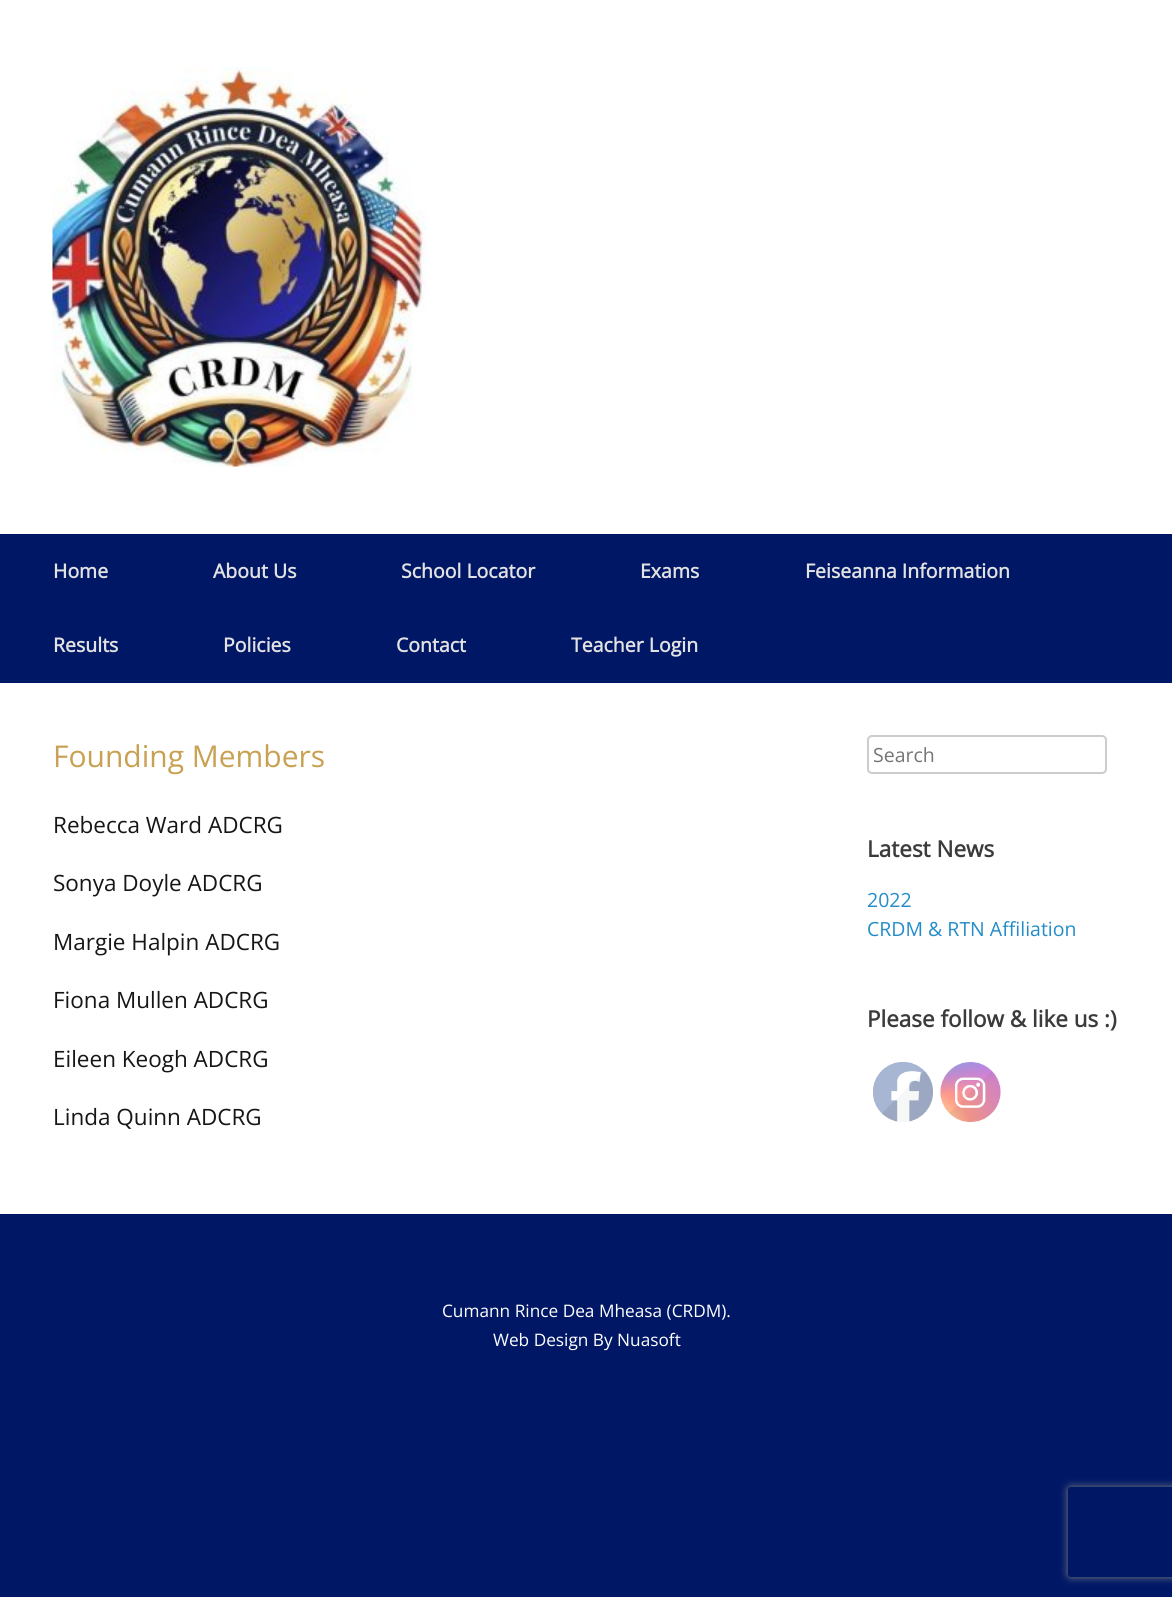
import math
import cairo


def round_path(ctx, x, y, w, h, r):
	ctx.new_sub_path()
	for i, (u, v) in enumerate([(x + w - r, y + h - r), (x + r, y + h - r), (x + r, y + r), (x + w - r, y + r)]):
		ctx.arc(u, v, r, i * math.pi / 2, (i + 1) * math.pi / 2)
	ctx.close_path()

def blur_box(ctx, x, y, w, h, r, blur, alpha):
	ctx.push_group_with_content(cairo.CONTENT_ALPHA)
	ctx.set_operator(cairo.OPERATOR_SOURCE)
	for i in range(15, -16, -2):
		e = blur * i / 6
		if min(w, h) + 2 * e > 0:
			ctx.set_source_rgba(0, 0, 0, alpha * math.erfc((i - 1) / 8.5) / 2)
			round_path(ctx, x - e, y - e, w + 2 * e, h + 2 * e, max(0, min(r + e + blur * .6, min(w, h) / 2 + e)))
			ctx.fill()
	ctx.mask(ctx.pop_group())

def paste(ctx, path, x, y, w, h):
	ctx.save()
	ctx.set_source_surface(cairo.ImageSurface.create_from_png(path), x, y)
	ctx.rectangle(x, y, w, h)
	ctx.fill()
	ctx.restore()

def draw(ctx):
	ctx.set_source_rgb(0, 0.09, 0.4)
	ctx.paint()
	ctx.set_source_rgb(1, 1, 1)
	ctx.rectangle(0, 0, 1172, 534)
	ctx.fill()
	paste(ctx, 'media/1.png', 52, 67, 376, 400)
	ctx.select_font_face('Open Sans', cairo.FONT_SLANT_NORMAL, cairo.FONT_WEIGHT_BOLD)
	ctx.set_font_size(19.5)
	ctx.set_source_rgb(0.886, 0.886, 0.886)
	for x, y, s in [
		(53, 578, 'Home'),
		(213, 578, 'About Us'),
		(401, 578, 'School Locator'),
		(640, 578, 'Exams'),
		(805, 578, 'Feiseanna Information'),
		(53, 652, 'Results'),
		(223, 652, 'Policies'),
		(396, 652, 'Contact'),
		(571, 652, 'Teacher Login'),
	]:
		ctx.move_to(x, y)
		ctx.show_text(s)
	ctx.set_source_rgb(1, 1, 1)
	ctx.rectangle(0, 683, 1172, 531)
	ctx.fill()
	ctx.select_font_face('Open Sans')
	ctx.set_font_size(30)
	ctx.set_source_rgb(0.784, 0.631, 0.322)
	ctx.move_to(53, 767)
	ctx.show_text('Founding Members')
	ctx.set_font_size(22.5)
	ctx.set_source_rgb(0.086, 0.086, 0.086)
	for x, y, s in [
		(53, 833, 'Rebecca Ward ADCRG'),
		(53, 891, 'Sonya Doyle ADCRG'),
		(53, 950, 'Margie Halpin ADCRG'),
		(53, 1008, 'Fiona Mullen ADCRG'),
		(53, 1067, 'Eileen Keogh ADCRG'),
		(53, 1125, 'Linda Quinn ADCRG'),
	]:
		ctx.move_to(x, y)
		ctx.show_text(s)
	round_path(ctx, 868, 736, 238, 37, 4)
	ctx.set_source_rgb(0.8, 0.8, 0.8)
	ctx.stroke()
	ctx.set_font_size(19.5)
	ctx.set_source_rgb(0.459, 0.459, 0.459)
	ctx.move_to(873, 762)
	ctx.show_text('Search')
	ctx.select_font_face('Open Sans', cairo.FONT_SLANT_NORMAL, cairo.FONT_WEIGHT_BOLD)
	ctx.set_font_size(22.5)
	ctx.set_source_rgb(0.231, 0.231, 0.231)
	ctx.move_to(867, 857)
	ctx.show_text('Latest News')
	ctx.select_font_face('Open Sans')
	ctx.set_font_size(19.5)
	ctx.set_source_rgb(0.141, 0.549, 0.784)
	ctx.move_to(867, 907)
	ctx.show_text('2022')
	ctx.move_to(867, 936)
	ctx.show_text('CRDM & RTN Affiliation')
	ctx.select_font_face('Open Sans', cairo.FONT_SLANT_NORMAL, cairo.FONT_WEIGHT_BOLD)
	ctx.set_font_size(22.5)
	ctx.set_source_rgb(0.231, 0.231, 0.231)
	ctx.move_to(867, 1027)
	ctx.show_text('Please follow & like us :)')
	paste(ctx, 'media/2.png', 873, 1062, 60, 60)
	paste(ctx, 'media/3.png', 940, 1062, 61, 60)
	ctx.select_font_face('Open Sans')
	ctx.set_font_size(17.25)
	ctx.set_source_rgb(1, 1, 1)
	ctx.move_to(442, 1317)
	ctx.show_text('Cumann Rince Dea Mheasa (CRDM).')
	ctx.move_to(493, 1346)
	ctx.show_text('Web Design By Nuasoft')
	ctx.save()
	ctx.set_fill_rule(cairo.FILL_RULE_EVEN_ODD)
	ctx.new_path()
	ctx.move_to(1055, 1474)
	ctx.line_to(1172, 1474)
	ctx.line_to(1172, 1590)
	ctx.line_to(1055, 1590)
	ctx.close_path()
	ctx.move_to(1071, 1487)
	ctx.line_to(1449, 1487)
	ctx.curve_to(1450.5, 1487, 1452, 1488.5, 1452, 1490)
	ctx.line_to(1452, 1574)
	ctx.curve_to(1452, 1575.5, 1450.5, 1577, 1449, 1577)
	ctx.line_to(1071, 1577)
	ctx.curve_to(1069.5, 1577, 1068, 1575.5, 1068, 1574)
	ctx.line_to(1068, 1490)
	ctx.curve_to(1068, 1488.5, 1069.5, 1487, 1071, 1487)
	ctx.close_path()
	ctx.clip()
	ctx.set_source_rgb(0.502, 0.502, 0.502)
	blur_box(ctx, 1068, 1487, 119, 90, 3, 4, 1)
	ctx.restore()


surface = cairo.ImageSurface(cairo.FORMAT_RGB24, 1172, 1597)
ctx = cairo.Context(surface)
options = cairo.FontOptions()
options.set_hint_metrics(cairo.HINT_METRICS_OFF)
options.set_hint_style(cairo.HINT_STYLE_NONE)
ctx.set_font_options(options)
ctx.set_miter_limit(4)
draw(ctx)
surface.write_to_png('image.png')
